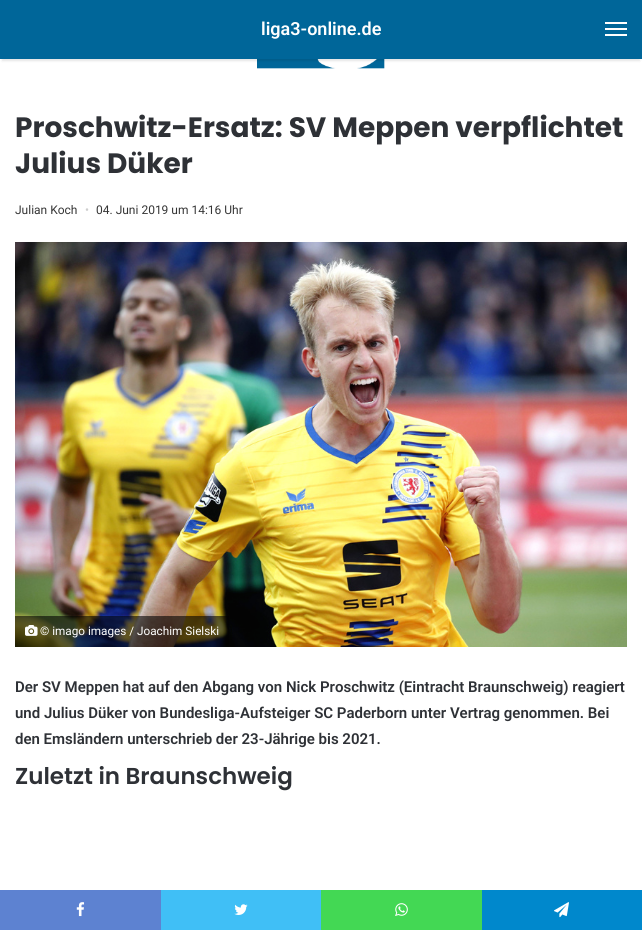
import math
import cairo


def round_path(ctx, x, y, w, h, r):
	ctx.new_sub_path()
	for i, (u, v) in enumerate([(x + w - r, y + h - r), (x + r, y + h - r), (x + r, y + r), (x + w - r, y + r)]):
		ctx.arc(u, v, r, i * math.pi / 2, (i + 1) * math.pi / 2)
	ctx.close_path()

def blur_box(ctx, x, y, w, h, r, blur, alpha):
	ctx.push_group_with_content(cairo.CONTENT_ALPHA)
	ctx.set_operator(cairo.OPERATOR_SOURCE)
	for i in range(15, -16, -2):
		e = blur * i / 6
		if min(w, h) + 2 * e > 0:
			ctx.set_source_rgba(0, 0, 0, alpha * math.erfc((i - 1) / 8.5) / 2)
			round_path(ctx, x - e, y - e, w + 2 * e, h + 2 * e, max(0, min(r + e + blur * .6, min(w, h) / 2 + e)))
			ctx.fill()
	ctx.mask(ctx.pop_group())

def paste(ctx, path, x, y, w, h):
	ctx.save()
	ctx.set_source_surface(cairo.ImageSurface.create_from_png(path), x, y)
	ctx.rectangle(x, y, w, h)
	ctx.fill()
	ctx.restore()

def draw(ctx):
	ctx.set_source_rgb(1, 1, 1)
	ctx.paint()
	paste(ctx, 'media/1.png', 257, 59, 128, 10)
	ctx.set_source_rgb(0, 0, 0)
	blur_box(ctx, 2, 6, 638, 55, 0, 1, 0.1)
	ctx.set_source_rgb(0, 0.4, 0.6)
	ctx.rectangle(0, 0, 642, 59)
	ctx.fill()
	ctx.select_font_face('Roboto SemiBold')
	ctx.set_font_size(18)
	ctx.set_source_rgb(1, 1, 1)
	ctx.move_to(261, 35)
	ctx.show_text('liga3-online.de')
	ctx.rectangle(605, 28, 22, 2)
	ctx.rectangle(605, 22, 22, 2)
	ctx.rectangle(605, 34, 22, 2)
	ctx.fill()
	ctx.select_font_face('Poppins', cairo.FONT_SLANT_NORMAL, cairo.FONT_WEIGHT_BOLD)
	ctx.set_font_size(28)
	ctx.set_source_rgb(0.18, 0.192, 0.212)
	ctx.move_to(15, 137)
	ctx.show_text('Proschwitz-Ersatz: SV Meppen verpflichtet')
	ctx.move_to(15, 173)
	ctx.show_text('Julius Düker')
	ctx.select_font_face('Roboto')
	ctx.set_font_size(12)
	ctx.set_source_rgb(0.208, 0.208, 0.208)
	ctx.move_to(15, 214)
	ctx.show_text('Julian Koch')
	ctx.set_source_rgb(0.804, 0.804, 0.804)
	ctx.move_to(85, 214)
	ctx.show_text('•')
	ctx.set_source_rgb(0.208, 0.208, 0.208)
	ctx.move_to(96, 214)
	ctx.show_text('04. Juni 2019 um 14:16 Uhr')
	paste(ctx, 'media/2.png', 15, 242, 612, 405)
	ctx.set_source_rgba(0.012, 0.012, 0.012, 0.6)
	ctx.rectangle(15, 616, 214, 31)
	ctx.fill()
	paste(ctx, 'media/3.png', 25, 625, 13, 11)
	ctx.set_font_size(11.75)
	ctx.set_source_rgb(1, 1, 1)
	ctx.move_to(40, 635)
	ctx.show_text('© imago images / Joachim Sielski')
	ctx.select_font_face('Roboto SemiBold')
	ctx.set_font_size(15)
	ctx.set_source_rgb(0.18, 0.192, 0.212)
	for x, y, s in [
		(15, 692, 'Der SV Meppen hat auf den Abgang von Nick Proschwitz (Eintracht Braunschweig) reagiert'),
		(15, 718, 'und Julius Düker von Bundesliga-Aufsteiger SC Paderborn unter Vertrag genommen. Bei'),
		(15, 744, 'den Emsländern unterschrieb der 23-Jährige bis 2021.'),
	]:
		ctx.move_to(x, y)
		ctx.show_text(s)
	ctx.select_font_face('Poppins SemiBold')
	ctx.set_font_size(23)
	ctx.move_to(15, 784)
	ctx.show_text('Zuletzt in Braunschweig')
	ctx.set_source_rgb(0.365, 0.51, 0.82)
	ctx.rectangle(0, 890, 161, 40)
	ctx.fill()
	paste(ctx, 'media/4.png', 76, 902, 9, 15)
	ctx.set_source_rgb(0.251, 0.749, 0.961)
	ctx.rectangle(161, 890, 160, 40)
	ctx.fill()
	paste(ctx, 'media/5.png', 234, 904, 14, 11)
	ctx.set_source_rgb(0.263, 0.847, 0.329)
	ctx.rectangle(321, 890, 161, 40)
	ctx.fill()
	paste(ctx, 'media/6.png', 395, 903, 13, 13)
	ctx.set_source_rgb(0, 0.533, 0.8)
	ctx.rectangle(482, 890, 160, 40)
	ctx.fill()
	paste(ctx, 'media/7.png', 554, 902, 15, 16)


surface = cairo.ImageSurface(cairo.FORMAT_RGB24, 642, 930)
ctx = cairo.Context(surface)
options = cairo.FontOptions()
options.set_hint_metrics(cairo.HINT_METRICS_OFF)
options.set_hint_style(cairo.HINT_STYLE_NONE)
ctx.set_font_options(options)
ctx.set_miter_limit(4)
draw(ctx)
surface.write_to_png('image.png')
